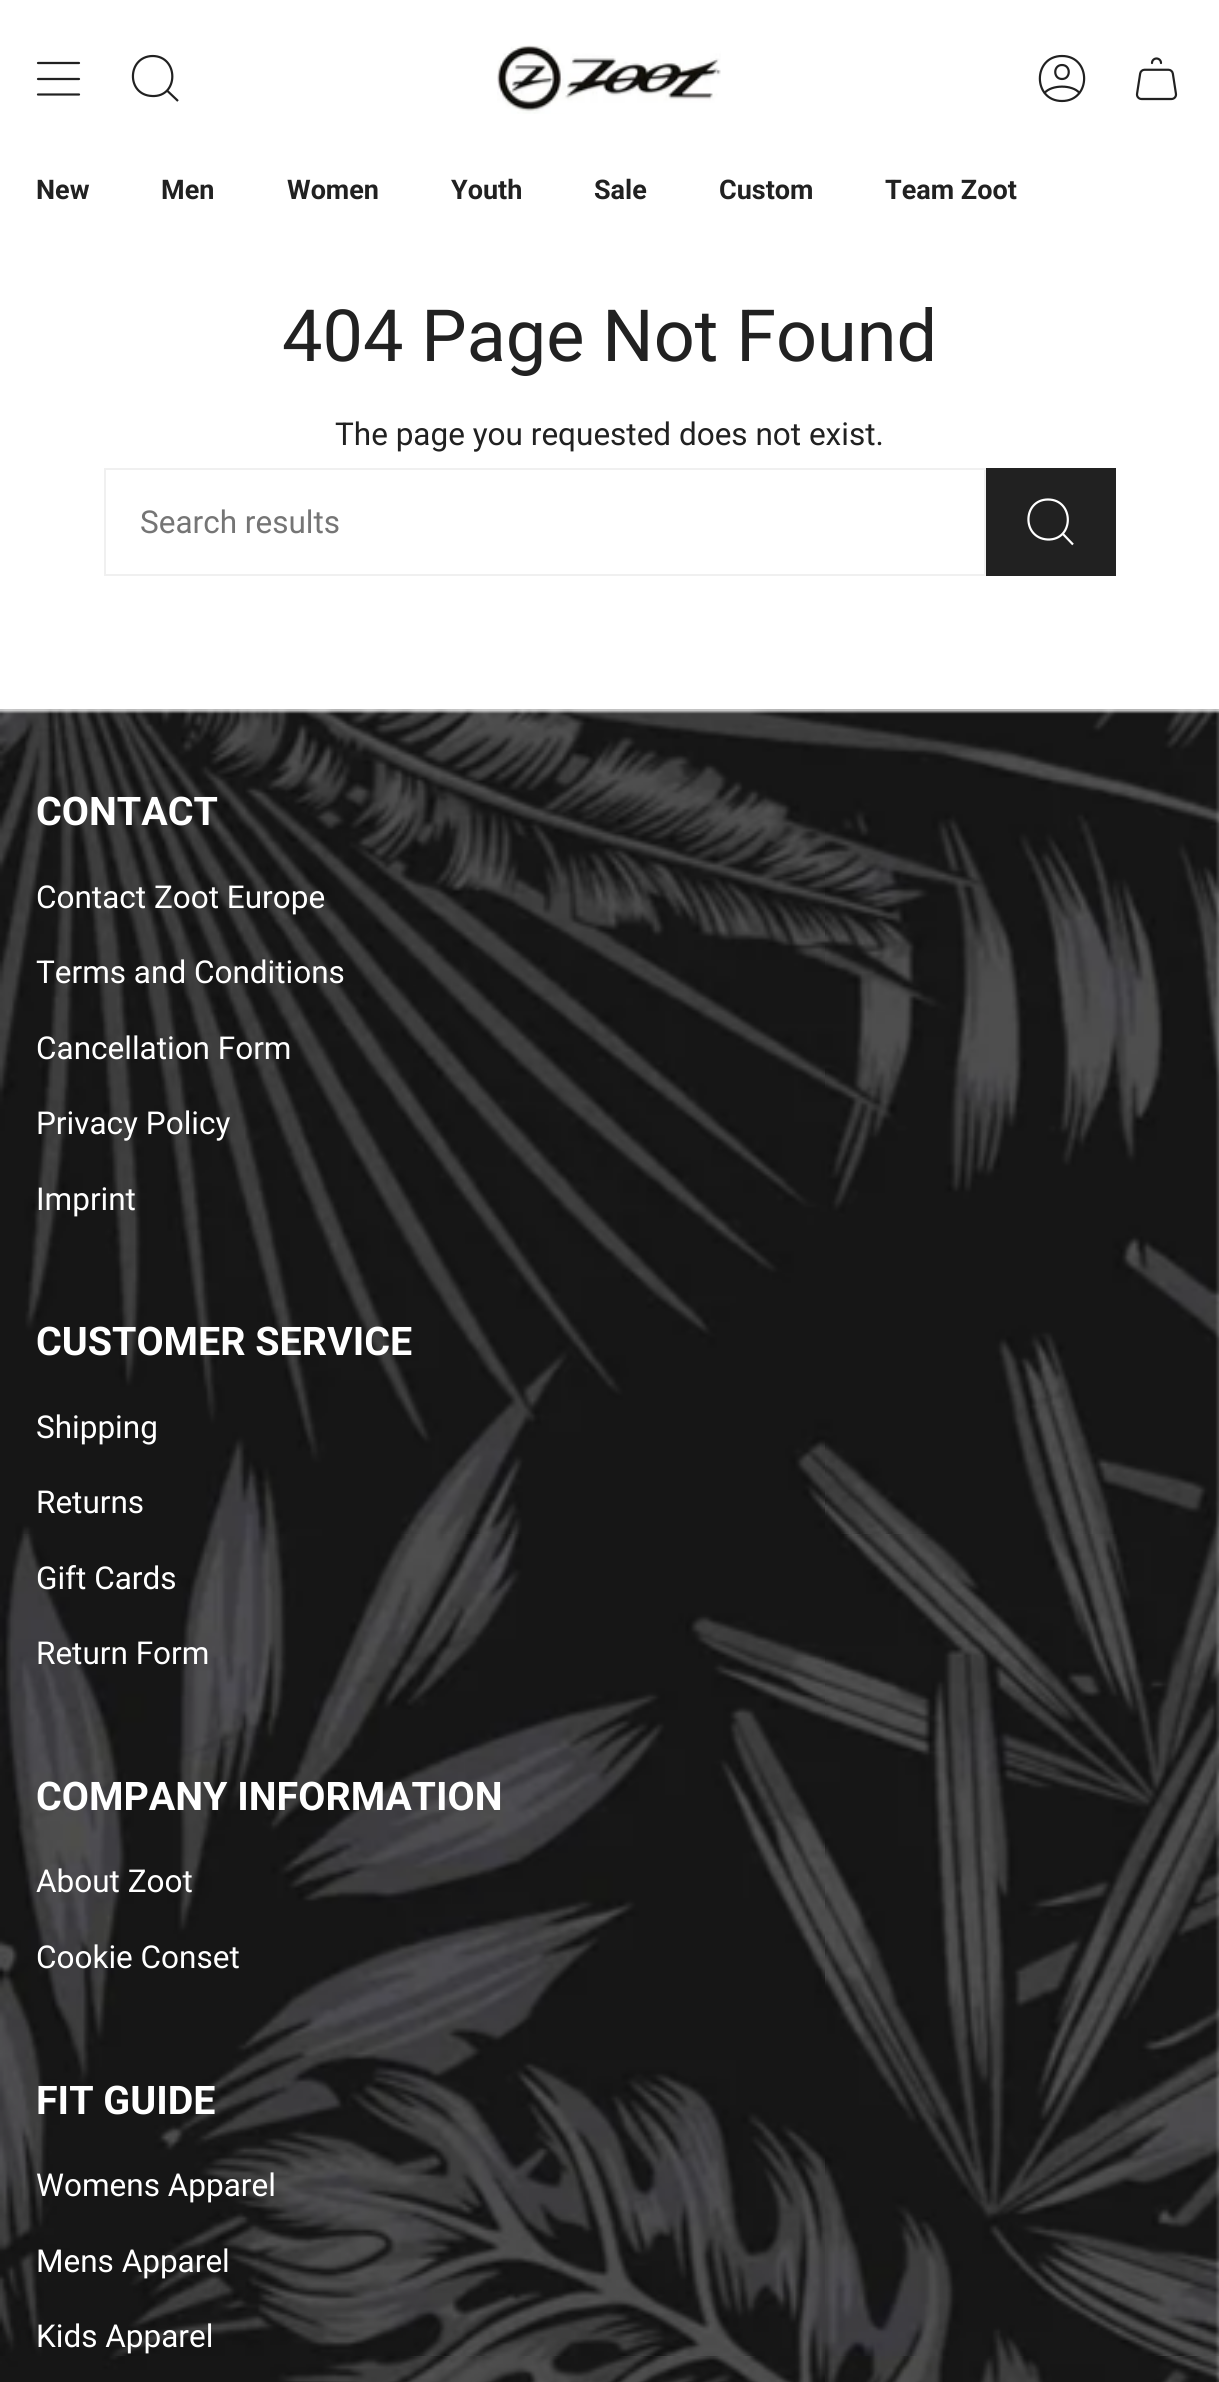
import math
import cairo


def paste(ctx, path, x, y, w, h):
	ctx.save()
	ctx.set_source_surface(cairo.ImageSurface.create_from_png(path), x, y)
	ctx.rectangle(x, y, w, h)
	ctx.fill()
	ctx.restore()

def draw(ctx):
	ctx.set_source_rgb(1, 1, 1)
	ctx.paint()
	ctx.new_path()
	ctx.move_to(38, 63)
	ctx.line_to(79, 63)
	ctx.move_to(38, 79)
	ctx.line_to(79, 79)
	ctx.move_to(38, 94.5)
	ctx.line_to(79, 94.5)
	ctx.set_source_rgb(0.129, 0.129, 0.129)
	ctx.set_line_width(2.2)
	ctx.set_line_cap(cairo.LINE_CAP_ROUND)
	ctx.set_line_join(cairo.LINE_JOIN_ROUND)
	ctx.stroke()
	ctx.new_path()
	ctx.move_to(152.5, 56)
	ctx.curve_to(179, 56, 179, 97.5, 152, 96)
	ctx.curve_to(126, 95, 127, 56.5, 152.5, 56)
	ctx.close_path()
	ctx.move_to(167, 90.5)
	ctx.line_to(178, 101)
	ctx.set_line_cap(cairo.LINE_CAP_BUTT)
	ctx.set_line_join(cairo.LINE_JOIN_MITER)
	ctx.stroke()
	paste(ctx, 'media/1.png', 497, 45, 224, 69)
	ctx.new_path()
	ctx.move_to(1062, 56)
	ctx.curve_to(1032.5, 56, 1032.5, 101, 1062, 101)
	ctx.curve_to(1091.5, 101, 1091.5, 56, 1062, 56)
	ctx.close_path()
	ctx.move_to(1044.5, 93)
	ctx.curve_to(1051.5, 84.5, 1072.5, 84.5, 1079.5, 93)
	ctx.move_to(1062, 79)
	ctx.curve_to(1071, 79, 1071, 65, 1062, 65)
	ctx.curve_to(1053, 65, 1053, 79, 1062, 79)
	ctx.close_path()
	ctx.set_line_cap(cairo.LINE_CAP_ROUND)
	ctx.set_line_join(cairo.LINE_JOIN_ROUND)
	ctx.stroke()
	paste(ctx, 'media/2.png', 1135, 57, 43, 44)
	ctx.select_font_face('Roboto', cairo.FONT_SLANT_NORMAL, cairo.FONT_WEIGHT_BOLD)
	ctx.set_font_size(27)
	for x, y, s in [
		(36, 199, 'New'),
		(161, 199, 'Men'),
		(287, 199, 'Women'),
		(451, 199, 'Youth'),
		(594, 199, 'Sale'),
		(719, 199, 'Custom'),
		(885, 199, 'Team Zoot'),
	]:
		ctx.move_to(x, y)
		ctx.show_text(s)
	ctx.select_font_face('Roboto')
	ctx.set_font_size(72)
	ctx.move_to(282, 361)
	ctx.show_text('404 Page Not Found')
	ctx.set_font_size(31.5)
	ctx.move_to(335, 445)
	ctx.show_text('The page you requested does not exist.')
	ctx.rectangle(105, 469, 880, 106)
	ctx.set_source_rgb(0.941, 0.941, 0.941)
	ctx.set_line_width(2)
	ctx.set_line_cap(cairo.LINE_CAP_BUTT)
	ctx.set_line_join(cairo.LINE_JOIN_MITER)
	ctx.stroke()
	ctx.set_source_rgb(0.459, 0.459, 0.459)
	ctx.move_to(140, 533)
	ctx.show_text('Search results')
	ctx.set_source_rgb(0.129, 0.129, 0.129)
	ctx.rectangle(986, 468, 130, 108)
	ctx.fill()
	ctx.new_path()
	ctx.move_to(1048, 499.5)
	ctx.curve_to(1074.5, 499.5, 1074.5, 540.5, 1047.5, 539.5)
	ctx.curve_to(1021.5, 538, 1022.5, 499.5, 1048, 499.5)
	ctx.close_path()
	ctx.move_to(1062.5, 533.5)
	ctx.line_to(1073, 544.5)
	ctx.set_source_rgb(1, 1, 1)
	ctx.set_line_width(2.2)
	ctx.stroke()
	paste(ctx, 'media/3.png', 0, 709, 1219, 1673)
	ctx.select_font_face('Roboto', cairo.FONT_SLANT_NORMAL, cairo.FONT_WEIGHT_BOLD)
	ctx.set_font_size(39.4)
	ctx.move_to(36, 825)
	ctx.show_text('CONTACT')
	ctx.select_font_face('Roboto')
	ctx.set_font_size(31.5)
	for x, y, s in [
		(36, 908, 'Contact Zoot Europe'),
		(36, 983, 'Terms and Conditions'),
		(36, 1059, 'Cancellation Form'),
		(36, 1134, 'Privacy Policy'),
		(36, 1210, 'Imprint'),
	]:
		ctx.move_to(x, y)
		ctx.show_text(s)
	ctx.select_font_face('Roboto', cairo.FONT_SLANT_NORMAL, cairo.FONT_WEIGHT_BOLD)
	ctx.set_font_size(39.4)
	ctx.move_to(36, 1355)
	ctx.show_text('CUSTOMER SERVICE')
	ctx.select_font_face('Roboto')
	ctx.set_font_size(31.5)
	for x, y, s in [
		(36, 1438, 'Shipping'),
		(36, 1513, 'Returns'),
		(36, 1589, 'Gift Cards'),
		(36, 1664, 'Return Form'),
	]:
		ctx.move_to(x, y)
		ctx.show_text(s)
	ctx.select_font_face('Roboto', cairo.FONT_SLANT_NORMAL, cairo.FONT_WEIGHT_BOLD)
	ctx.set_font_size(39.4)
	ctx.move_to(36, 1810)
	ctx.show_text('COMPANY INFORMATION')
	ctx.select_font_face('Roboto')
	ctx.set_font_size(31.5)
	ctx.move_to(36, 1892)
	ctx.show_text('About Zoot')
	ctx.move_to(36, 1968)
	ctx.show_text('Cookie Conset')
	ctx.select_font_face('Roboto', cairo.FONT_SLANT_NORMAL, cairo.FONT_WEIGHT_BOLD)
	ctx.set_font_size(39.4)
	ctx.move_to(36, 2114)
	ctx.show_text('FIT GUIDE')
	ctx.select_font_face('Roboto')
	ctx.set_font_size(31.5)
	for x, y, s in [
		(36, 2196, 'Womens Apparel'),
		(36, 2272, 'Mens Apparel'),
		(36, 2347, 'Kids Apparel'),
	]:
		ctx.move_to(x, y)
		ctx.show_text(s)


surface = cairo.ImageSurface(cairo.FORMAT_RGB24, 1219, 2382)
ctx = cairo.Context(surface)
options = cairo.FontOptions()
options.set_hint_metrics(cairo.HINT_METRICS_OFF)
options.set_hint_style(cairo.HINT_STYLE_NONE)
ctx.set_font_options(options)
ctx.set_miter_limit(4)
draw(ctx)
surface.write_to_png('image.png')
